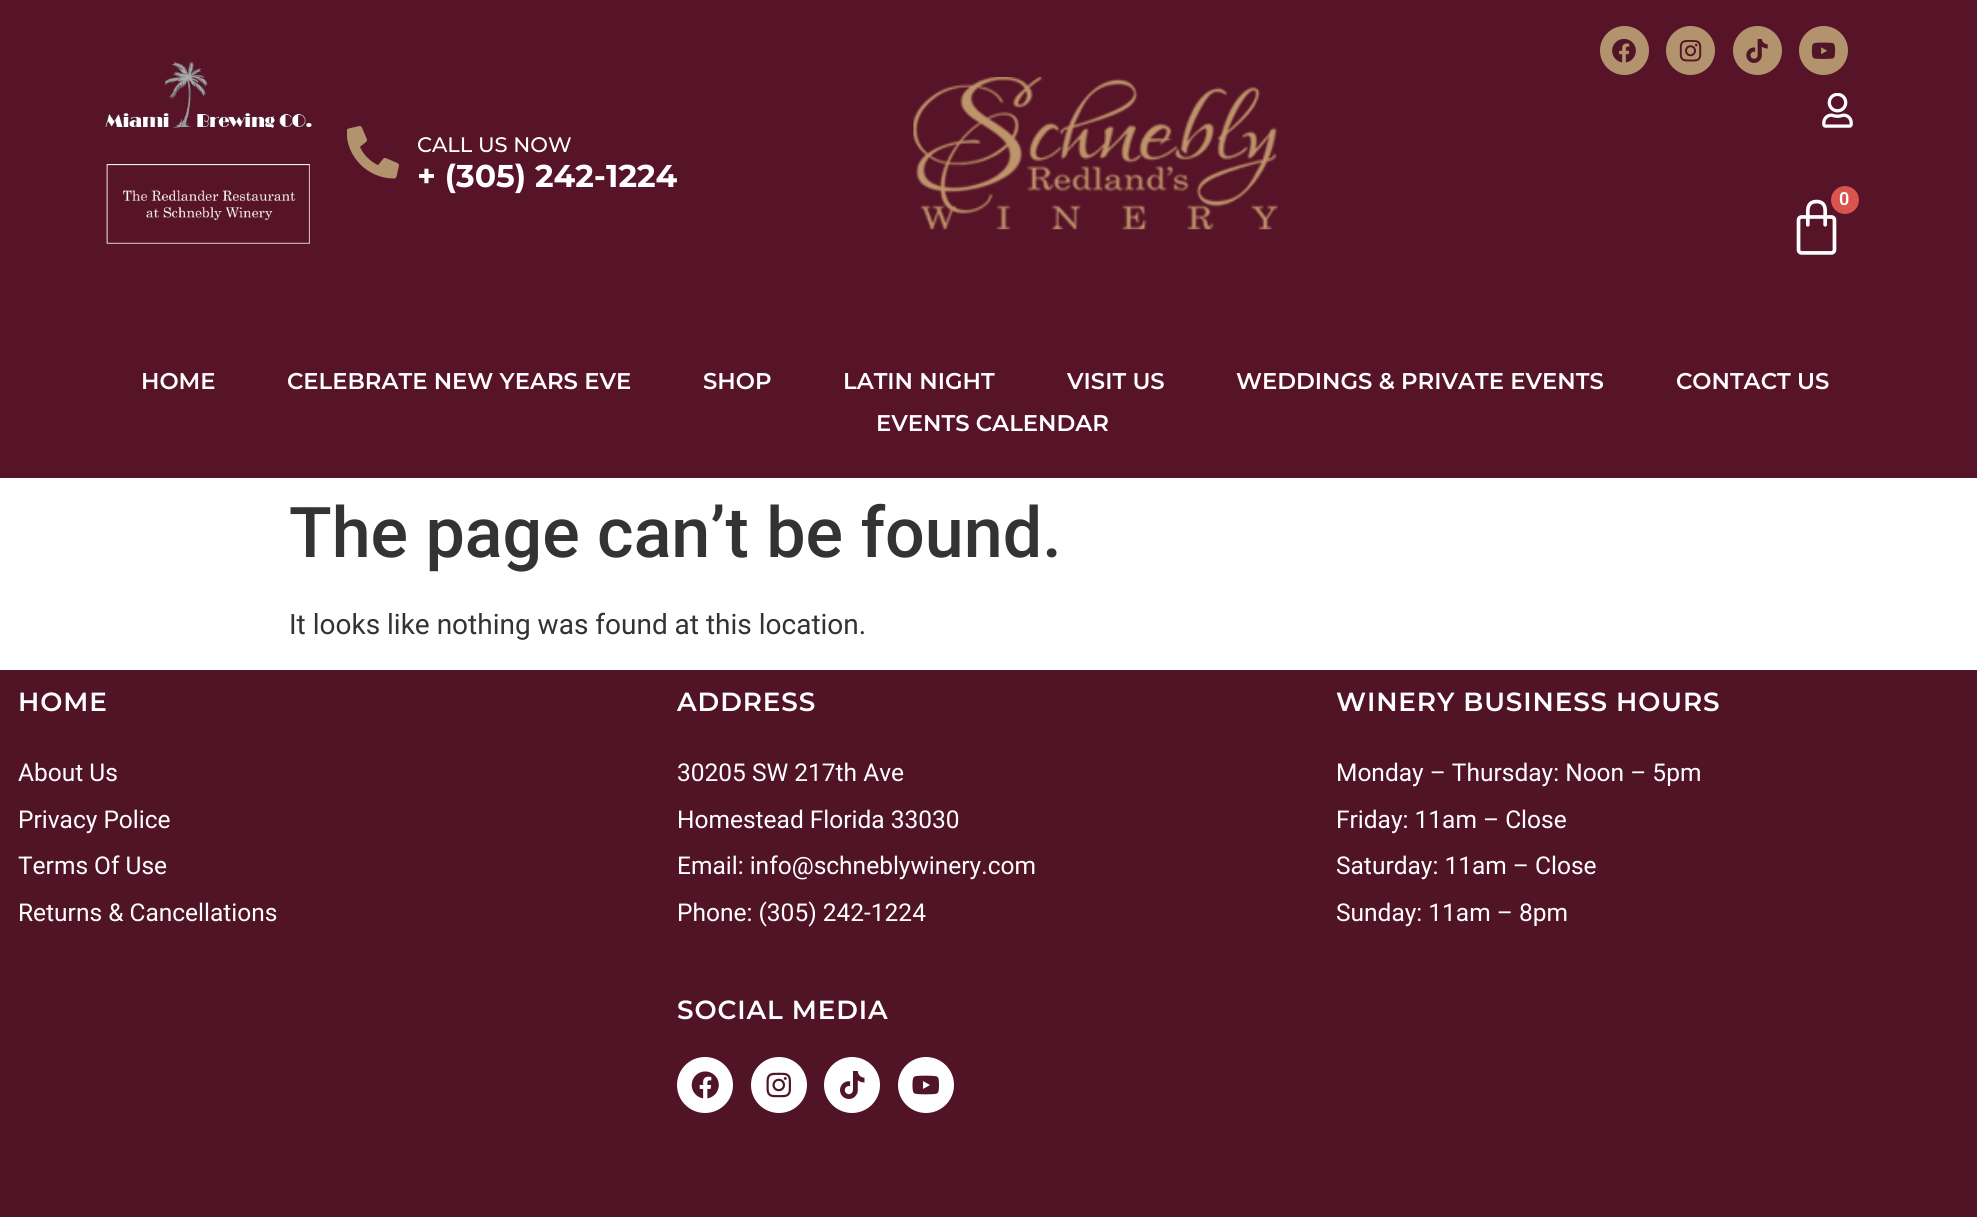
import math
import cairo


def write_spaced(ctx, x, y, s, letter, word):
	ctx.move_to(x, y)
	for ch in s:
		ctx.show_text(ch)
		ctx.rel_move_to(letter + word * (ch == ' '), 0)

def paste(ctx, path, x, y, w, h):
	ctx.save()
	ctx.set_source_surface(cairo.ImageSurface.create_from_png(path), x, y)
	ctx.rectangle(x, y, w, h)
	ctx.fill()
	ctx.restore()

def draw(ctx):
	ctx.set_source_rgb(1, 1, 1)
	ctx.paint()
	ctx.set_source_rgb(0.341, 0.078, 0.153)
	ctx.rectangle(0, 0, 1977, 478)
	ctx.fill()
	paste(ctx, 'media/1.png', 105, 61, 207, 67)
	paste(ctx, 'media/2.png', 106, 164, 204, 80)
	paste(ctx, 'media/3.png', 347, 126, 52, 53)
	ctx.select_font_face('Montserrat Medium')
	ctx.set_font_size(21)
	ctx.set_source_rgb(1, 1, 1)
	ctx.move_to(417, 152)
	ctx.show_text('CALL US NOW')
	ctx.select_font_face('Montserrat', cairo.FONT_SLANT_NORMAL, cairo.FONT_WEIGHT_BOLD)
	ctx.set_font_size(31.5)
	ctx.move_to(417, 187)
	ctx.show_text('+ (305) 242-1224')
	paste(ctx, 'media/4.png', 913, 77, 365, 153)
	ctx.set_source_rgb(0.698, 0.576, 0.427)
	ctx.arc(1624.5, 50.5, 24.5, 0, 2 * math.pi)
	ctx.fill()
	paste(ctx, 'media/5.png', 1612, 39, 24, 24)
	ctx.arc(1690.5, 50.5, 24.5, 0, 2 * math.pi)
	ctx.fill()
	paste(ctx, 'media/6.png', 1679, 40, 23, 22)
	ctx.arc(1757.5, 50.5, 24.5, 0, 2 * math.pi)
	ctx.fill()
	paste(ctx, 'media/7.png', 1746, 39, 22, 24)
	ctx.arc(1823.5, 50.5, 24.5, 0, 2 * math.pi)
	ctx.fill()
	paste(ctx, 'media/8.png', 1811, 42, 25, 17)
	paste(ctx, 'media/9.png', 1822, 93, 31, 35)
	paste(ctx, 'media/10.png', 1796, 199, 41, 56)
	ctx.set_source_rgb(0.851, 0.325, 0.31)
	ctx.arc(1845, 200, 14, 0, 2 * math.pi)
	ctx.fill()
	ctx.select_font_face('Roboto SemiBold')
	ctx.set_font_size(18)
	ctx.set_source_rgb(1, 1, 1)
	ctx.move_to(1839, 205)
	ctx.show_text('0')
	ctx.select_font_face('Montserrat SemiBold')
	ctx.set_font_size(22.75)
	for x, y, s in [
		(141, 389, 'HOME'),
		(287, 389, 'CELEBRATE NEW YEARS EVE'),
		(703, 389, 'SHOP'),
		(843, 389, 'LATIN NIGHT'),
		(1067, 389, 'VISIT US'),
		(1236, 389, 'WEDDINGS & PRIVATE EVENTS'),
		(1676, 389, 'CONTACT US'),
		(876, 431, 'EVENTS CALENDAR'),
	]:
		ctx.move_to(x, y)
		ctx.show_text(s)
	ctx.select_font_face('Roboto Medium')
	ctx.set_font_size(70)
	ctx.set_source_rgb(0.2, 0.2, 0.2)
	ctx.move_to(289, 557)
	ctx.show_text('The page can’t be found.')
	ctx.select_font_face('Roboto')
	ctx.set_font_size(28)
	ctx.move_to(289, 634)
	ctx.show_text('It looks like nothing was found at this location.')
	ctx.set_source_rgb(0.314, 0.082, 0.149)
	ctx.rectangle(0, 670, 1977, 547)
	ctx.fill()
	ctx.select_font_face('Montserrat SemiBold')
	ctx.set_font_size(26.25)
	ctx.set_source_rgb(1, 1, 1)
	write_spaced(ctx, 18, 711, 'HOME', 0.9, 0)
	ctx.select_font_face('Roboto')
	ctx.set_font_size(24.5)
	for x, y, s in [
		(18, 781, 'About Us'),
		(18, 828, 'Privacy Police'),
		(18, 874, 'Terms Of Use'),
		(18, 921, 'Returns & Cancellations'),
	]:
		ctx.move_to(x, y)
		ctx.show_text(s)
	ctx.select_font_face('Montserrat SemiBold')
	ctx.set_font_size(26.25)
	write_spaced(ctx, 677, 711, 'ADDRESS', 0.9, 0)
	ctx.select_font_face('Roboto')
	ctx.set_font_size(24.5)
	for x, y, s in [
		(677, 781, '30205 SW 217th Ave'),
		(677, 828, 'Homestead Florida 33030'),
		(677, 874, 'Email: info@schneblywinery.com'),
		(677, 921, 'Phone: (305) 242-1224'),
	]:
		ctx.move_to(x, y)
		ctx.show_text(s)
	ctx.select_font_face('Montserrat SemiBold')
	ctx.set_font_size(26.25)
	write_spaced(ctx, 1336, 711, 'WINERY BUSINESS HOURS', 0.9, 0)
	ctx.select_font_face('Roboto')
	ctx.set_font_size(24.5)
	for x, y, s in [
		(1336, 781, 'Monday – Thursday: Noon – 5pm'),
		(1336, 828, 'Friday: 11am – Close'),
		(1336, 874, 'Saturday: 11am – Close'),
		(1336, 921, 'Sunday: 11am – 8pm'),
	]:
		ctx.move_to(x, y)
		ctx.show_text(s)
	ctx.select_font_face('Montserrat SemiBold')
	ctx.set_font_size(26.25)
	write_spaced(ctx, 677, 1019, 'SOCIAL MEDIA', 0.9, 0)
	ctx.new_path()
	ctx.arc(705, 1085, 28, 0, 2 * math.pi)
	ctx.fill()
	paste(ctx, 'media/11.png', 691, 1071, 28, 28)
	ctx.arc(779, 1085, 28, 0, 2 * math.pi)
	ctx.fill()
	paste(ctx, 'media/12.png', 766, 1072, 25, 26)
	ctx.arc(852, 1085, 28, 0, 2 * math.pi)
	ctx.fill()
	paste(ctx, 'media/13.png', 840, 1071, 25, 28)
	ctx.arc(926, 1085, 28, 0, 2 * math.pi)
	ctx.fill()
	paste(ctx, 'media/14.png', 912, 1075, 27, 20)


surface = cairo.ImageSurface(cairo.FORMAT_RGB24, 1977, 1217)
ctx = cairo.Context(surface)
options = cairo.FontOptions()
options.set_hint_metrics(cairo.HINT_METRICS_OFF)
options.set_hint_style(cairo.HINT_STYLE_NONE)
ctx.set_font_options(options)
ctx.set_miter_limit(4)
draw(ctx)
surface.write_to_png('image.png')
